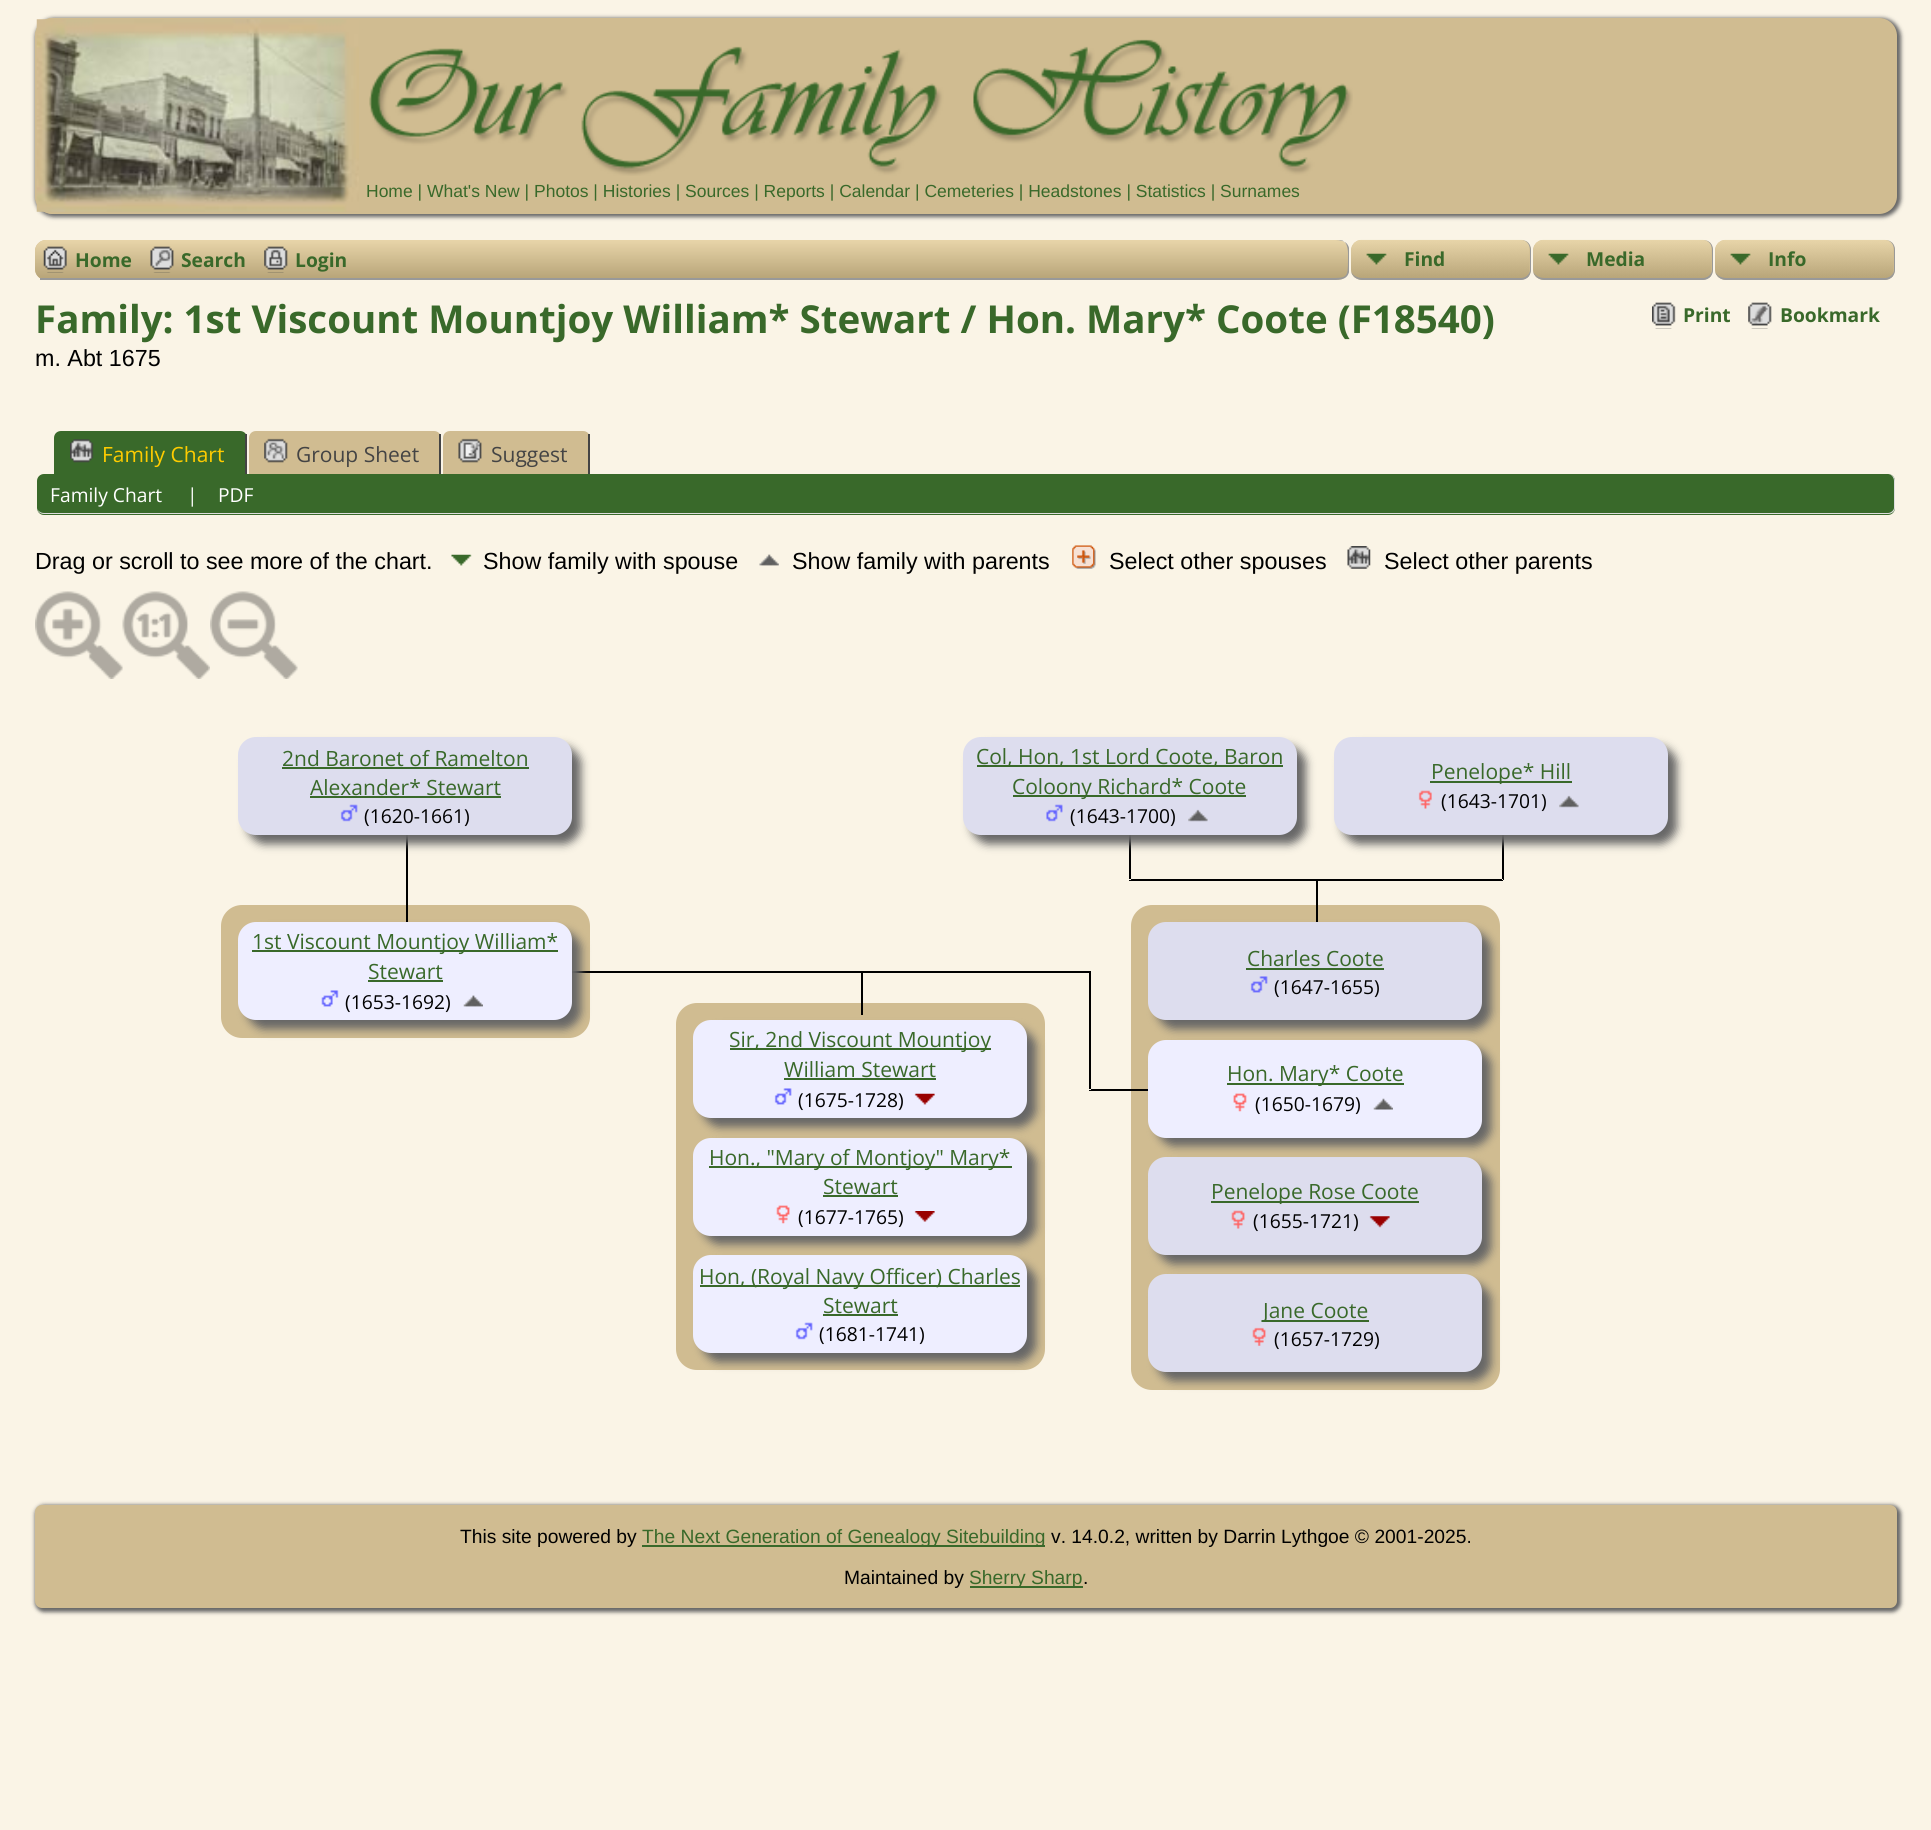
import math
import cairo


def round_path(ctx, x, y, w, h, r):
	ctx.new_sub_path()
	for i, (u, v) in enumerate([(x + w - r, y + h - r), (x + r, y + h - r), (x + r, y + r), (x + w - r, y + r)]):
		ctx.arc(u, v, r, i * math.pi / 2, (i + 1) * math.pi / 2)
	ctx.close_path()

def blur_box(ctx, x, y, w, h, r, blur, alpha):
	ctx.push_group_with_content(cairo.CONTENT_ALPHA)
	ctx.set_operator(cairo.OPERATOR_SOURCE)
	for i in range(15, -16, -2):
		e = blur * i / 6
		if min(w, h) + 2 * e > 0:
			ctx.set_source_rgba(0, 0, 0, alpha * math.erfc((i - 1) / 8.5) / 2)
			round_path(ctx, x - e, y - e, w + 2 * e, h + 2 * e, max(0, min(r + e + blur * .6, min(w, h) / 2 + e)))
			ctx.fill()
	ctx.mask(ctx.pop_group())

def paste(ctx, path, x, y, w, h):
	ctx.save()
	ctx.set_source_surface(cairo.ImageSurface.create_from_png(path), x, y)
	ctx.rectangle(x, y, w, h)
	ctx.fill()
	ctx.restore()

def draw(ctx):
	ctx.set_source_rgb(0.98, 0.957, 0.902)
	ctx.paint()
	ctx.set_source_rgb(0.4, 0.4, 0.4)
	blur_box(ctx, 35, 18, 1866, 199, 19, 2, 1)
	ctx.set_source_rgb(0.816, 0.737, 0.569)
	round_path(ctx, 35, 18, 1862, 196, 18)
	ctx.fill()
	round_path(ctx, 35, 18, 329, 196, 18)
	ctx.fill()
	paste(ctx, 'media/1.png', 36, 19, 323, 193)
	paste(ctx, 'media/2.png', 369, 39, 984, 137)
	ctx.select_font_face('Liberation Sans')
	ctx.set_font_size(17.5)
	ctx.set_source_rgb(0.224, 0.412, 0.165)
	ctx.move_to(366, 197)
	ctx.show_text('Home | What\'s New | Photos | Histories | Sources | Reports | Calendar | Cemeteries | Headstones | Statistics | Surnames')
	ctx.set_source_rgb(0.816, 0.737, 0.569)
	round_path(ctx, 35, 240, 1862, 40, 11)
	ctx.fill()
	ctx.save()
	round_path(ctx, 35, 240, 1862, 40, 11)
	ctx.clip()
	gradient = cairo.LinearGradient(966, 240, 966, 278)
	gradient.add_color_stop_rgba(0, 0.91, 0.835, 0.663, 1)
	gradient.add_color_stop_rgba(1, 0.722, 0.647, 0.475, 1)
	ctx.set_source(gradient)
	ctx.new_path()
	ctx.move_to(46, 240)
	ctx.line_to(1886, 240)
	ctx.curve_to(1892, 240, 1897, 245, 1897, 251)
	ctx.line_to(1897, 278)
	ctx.line_to(35, 278)
	ctx.line_to(35, 251)
	ctx.curve_to(35, 245, 40, 240, 46, 240)
	ctx.close_path()
	ctx.fill()
	ctx.restore()
	ctx.set_source_rgb(0.6, 0.6, 0.6)
	ctx.rectangle(40, 278, 1290, 2)
	ctx.fill()
	paste(ctx, 'media/3.png', 43, 246, 24, 27)
	ctx.select_font_face('Open Sans', cairo.FONT_SLANT_NORMAL, cairo.FONT_WEIGHT_BOLD)
	ctx.set_font_size(19.25)
	ctx.set_source_rgb(0.224, 0.412, 0.165)
	ctx.move_to(75, 267)
	ctx.show_text('Home')
	paste(ctx, 'media/4.png', 150, 246, 24, 27)
	ctx.move_to(181, 267)
	ctx.show_text('Search')
	paste(ctx, 'media/5.png', 264, 246, 24, 27)
	ctx.move_to(295, 267)
	ctx.show_text('Login')
	ctx.set_source_rgb(0.98, 0.957, 0.902)
	ctx.rectangle(1338, 240, 559, 40)
	ctx.fill()
	ctx.save()
	ctx.new_path()
	ctx.move_to(1330, 240)
	ctx.line_to(1338, 240)
	ctx.curve_to(1344, 240, 1349, 245, 1349, 251)
	ctx.line_to(1349, 269)
	ctx.curve_to(1349, 275, 1344, 280, 1338, 280)
	ctx.line_to(1330, 280)
	ctx.close_path()
	ctx.clip()
	gradient = cairo.LinearGradient(1339, 240, 1339, 278)
	gradient.add_color_stop_rgba(0, 0.91, 0.835, 0.663, 1)
	gradient.add_color_stop_rgba(1, 0.722, 0.647, 0.475, 1)
	ctx.set_source(gradient)
	ctx.rectangle(1330, 240, 19, 38)
	ctx.fill()
	gradient = cairo.LinearGradient(1339, 278, 1339, 317)
	gradient.add_color_stop_rgba(0, 0.91, 0.835, 0.663, 1)
	gradient.add_color_stop_rgba(1, 0.722, 0.647, 0.475, 1)
	ctx.set_source(gradient)
	ctx.rectangle(1330, 278, 19, 2)
	ctx.fill()
	ctx.restore()
	ctx.set_source_rgb(0.6, 0.6, 0.6)
	ctx.set_fill_rule(cairo.FILL_RULE_EVEN_ODD)
	ctx.new_path()
	ctx.move_to(1330, 240)
	ctx.curve_to(1337, 240, 1347, 239, 1349, 248)
	ctx.line_to(1349, 272)
	ctx.curve_to(1347, 281, 1337, 280, 1330, 280)
	ctx.close_path()
	ctx.move_to(1330, 240)
	ctx.line_to(1341, 240)
	ctx.curve_to(1349, 242, 1348, 253, 1348, 260)
	ctx.curve_to(1348, 278, 1347, 278, 1330, 278)
	ctx.close_path()
	ctx.fill()
	ctx.set_source_rgb(0.816, 0.737, 0.569)
	round_path(ctx, 1351, 240, 180, 40, 11)
	ctx.fill()
	paste(ctx, 'media/6.png', 1351, 239, 179, 40)
	ctx.set_source_rgb(0.6, 0.6, 0.6)
	ctx.new_path()
	ctx.move_to(1362, 240)
	ctx.line_to(1521, 240)
	ctx.curve_to(1527, 240, 1531, 244, 1531, 250)
	ctx.line_to(1531, 270)
	ctx.curve_to(1531, 275, 1527, 280, 1521, 280)
	ctx.line_to(1362, 280)
	ctx.curve_to(1356, 280, 1351, 275, 1351, 270)
	ctx.line_to(1351, 250)
	ctx.curve_to(1351, 244, 1356, 240, 1362, 240)
	ctx.close_path()
	ctx.move_to(1362, 240)
	ctx.line_to(1521, 240)
	ctx.curve_to(1526, 240, 1530, 244, 1530, 250)
	ctx.line_to(1530, 270)
	ctx.curve_to(1530, 274, 1526, 278, 1521, 278)
	ctx.line_to(1362, 278)
	ctx.curve_to(1356, 278, 1351, 274, 1351, 270)
	ctx.line_to(1351, 250)
	ctx.curve_to(1351, 244, 1356, 240, 1362, 240)
	ctx.close_path()
	ctx.fill()
	ctx.set_source_rgb(0.224, 0.412, 0.165)
	ctx.move_to(1404, 266)
	ctx.show_text('Find')
	ctx.set_source_rgb(0.816, 0.737, 0.569)
	round_path(ctx, 1533, 240, 180, 40, 11)
	ctx.fill()
	paste(ctx, 'media/7.png', 1533, 239, 179, 40)
	ctx.set_source_rgb(0.6, 0.6, 0.6)
	ctx.new_path()
	ctx.move_to(1544, 240)
	ctx.line_to(1703, 240)
	ctx.curve_to(1709, 240, 1713, 244, 1713, 250)
	ctx.line_to(1713, 270)
	ctx.curve_to(1713, 275, 1709, 280, 1703, 280)
	ctx.line_to(1544, 280)
	ctx.curve_to(1538, 280, 1533, 275, 1533, 270)
	ctx.line_to(1533, 250)
	ctx.curve_to(1533, 244, 1538, 240, 1544, 240)
	ctx.close_path()
	ctx.move_to(1544, 240)
	ctx.line_to(1703, 240)
	ctx.curve_to(1708, 240, 1712, 244, 1712, 250)
	ctx.line_to(1712, 270)
	ctx.curve_to(1712, 274, 1708, 278, 1703, 278)
	ctx.line_to(1544, 278)
	ctx.curve_to(1538, 278, 1533, 274, 1533, 270)
	ctx.line_to(1533, 250)
	ctx.curve_to(1533, 244, 1538, 240, 1544, 240)
	ctx.close_path()
	ctx.fill()
	ctx.set_source_rgb(0.224, 0.412, 0.165)
	ctx.move_to(1586, 266)
	ctx.show_text('Media')
	ctx.set_source_rgb(0.816, 0.737, 0.569)
	round_path(ctx, 1715, 240, 180, 40, 11)
	ctx.fill()
	paste(ctx, 'media/8.png', 1715, 239, 179, 40)
	ctx.set_source_rgb(0.6, 0.6, 0.6)
	ctx.new_path()
	ctx.move_to(1726, 240)
	ctx.line_to(1885, 240)
	ctx.curve_to(1891, 240, 1895, 244, 1895, 250)
	ctx.line_to(1895, 270)
	ctx.curve_to(1895, 275, 1891, 280, 1885, 280)
	ctx.line_to(1726, 280)
	ctx.curve_to(1720, 280, 1715, 275, 1715, 270)
	ctx.line_to(1715, 250)
	ctx.curve_to(1715, 244, 1720, 240, 1726, 240)
	ctx.close_path()
	ctx.move_to(1726, 240)
	ctx.line_to(1885, 240)
	ctx.curve_to(1890, 240, 1894, 244, 1894, 250)
	ctx.line_to(1894, 270)
	ctx.curve_to(1894, 274, 1890, 278, 1885, 278)
	ctx.line_to(1726, 278)
	ctx.curve_to(1720, 278, 1715, 274, 1715, 270)
	ctx.line_to(1715, 250)
	ctx.curve_to(1715, 244, 1720, 240, 1726, 240)
	ctx.close_path()
	ctx.fill()
	ctx.set_source_rgb(0.224, 0.412, 0.165)
	ctx.move_to(1768, 266)
	ctx.show_text('Info')
	ctx.set_font_size(38.5)
	ctx.move_to(35, 333)
	ctx.show_text('Family: 1st Viscount Mountjoy William* Stewart / Hon. Mary* Coote (F18540)')
	paste(ctx, 'media/9.png', 1652, 302, 24, 27)
	ctx.set_font_size(19.25)
	ctx.move_to(1683, 322)
	ctx.show_text('Print')
	paste(ctx, 'media/10.png', 1748, 302, 24, 27)
	ctx.move_to(1780, 322)
	ctx.show_text('Bookmark')
	ctx.select_font_face('Liberation Sans')
	ctx.set_font_size(23.3)
	ctx.set_source_rgb(0, 0, 0)
	ctx.move_to(35, 366)
	ctx.show_text('m. Abt 1675')
	ctx.set_source_rgb(0.224, 0.412, 0.165)
	ctx.new_path()
	ctx.move_to(61, 431)
	ctx.line_to(240, 431)
	ctx.curve_to(244, 431, 247, 434, 247, 438)
	ctx.line_to(247, 474)
	ctx.line_to(54, 474)
	ctx.line_to(54, 438)
	ctx.curve_to(54, 434, 57, 431, 61, 431)
	ctx.close_path()
	ctx.fill()
	ctx.set_source_rgb(0.267, 0.267, 0.267)
	ctx.rectangle(245, 434, 2, 40)
	ctx.fill()
	paste(ctx, 'media/11.png', 70, 439, 24, 24)
	ctx.select_font_face('Open Sans')
	ctx.set_font_size(21)
	ctx.set_source_rgb(1, 0.8, 0)
	ctx.move_to(102, 462)
	ctx.show_text('Family Chart')
	ctx.set_source_rgb(0.816, 0.737, 0.569)
	ctx.new_path()
	ctx.move_to(256, 431)
	ctx.line_to(434, 431)
	ctx.curve_to(438, 431, 441, 434, 441, 438)
	ctx.line_to(441, 474)
	ctx.line_to(249, 474)
	ctx.line_to(249, 438)
	ctx.curve_to(249, 434, 252, 431, 256, 431)
	ctx.close_path()
	ctx.fill()
	ctx.set_source_rgb(0.267, 0.267, 0.267)
	ctx.rectangle(439, 434, 2, 40)
	ctx.fill()
	paste(ctx, 'media/12.png', 264, 438, 24, 25)
	ctx.move_to(296, 462)
	ctx.show_text('Group Sheet')
	ctx.set_source_rgb(0.816, 0.737, 0.569)
	ctx.new_path()
	ctx.move_to(450, 431)
	ctx.line_to(583, 431)
	ctx.curve_to(587, 431, 590, 434, 590, 438)
	ctx.line_to(590, 474)
	ctx.line_to(443, 474)
	ctx.line_to(443, 438)
	ctx.curve_to(443, 434, 446, 431, 450, 431)
	ctx.close_path()
	ctx.fill()
	ctx.set_source_rgb(0.267, 0.267, 0.267)
	ctx.rectangle(588, 434, 2, 40)
	ctx.fill()
	paste(ctx, 'media/13.png', 458, 438, 24, 25)
	ctx.move_to(491, 462)
	ctx.show_text('Suggest')
	ctx.set_source_rgb(0.224, 0.412, 0.165)
	round_path(ctx, 37, 474, 1858, 41, 7)
	ctx.fill()
	ctx.set_source_rgb(0.867, 0.867, 0.867)
	ctx.new_path()
	ctx.move_to(44, 474)
	ctx.line_to(1888, 474)
	ctx.curve_to(1892, 474, 1895, 477, 1895, 481)
	ctx.line_to(1895, 508)
	ctx.curve_to(1895, 511, 1892, 514, 1888, 514)
	ctx.line_to(44, 514)
	ctx.curve_to(40, 514, 37, 511, 37, 508)
	ctx.line_to(37, 481)
	ctx.curve_to(37, 477, 40, 474, 44, 474)
	ctx.close_path()
	ctx.move_to(44, 474)
	ctx.line_to(1888, 474)
	ctx.curve_to(1891, 474, 1894, 477, 1894, 481)
	ctx.line_to(1894, 508)
	ctx.curve_to(1894, 510, 1891, 513, 1888, 513)
	ctx.line_to(44, 513)
	ctx.curve_to(40, 513, 37, 510, 37, 508)
	ctx.line_to(37, 481)
	ctx.curve_to(37, 477, 40, 474, 44, 474)
	ctx.close_path()
	ctx.fill()
	ctx.set_font_size(19.25)
	ctx.set_source_rgb(1, 1, 1)
	for x, y, s in [
		(50, 502, 'Family Chart'),
		(187, 502, '|'),
		(218, 502, 'PDF'),
	]:
		ctx.move_to(x, y)
		ctx.show_text(s)
	ctx.select_font_face('Liberation Sans')
	ctx.set_font_size(23.3)
	ctx.set_source_rgb(0, 0, 0)
	ctx.move_to(35, 569)
	ctx.show_text('Drag or scroll to see more of the chart.')
	paste(ctx, 'media/14.png', 451, 554, 21, 12)
	ctx.move_to(483, 569)
	ctx.show_text('Show family with spouse')
	paste(ctx, 'media/15.png', 759, 554, 20, 12)
	ctx.move_to(792, 569)
	ctx.show_text('Show family with parents')
	paste(ctx, 'media/16.png', 1072, 545, 24, 24)
	ctx.move_to(1109, 569)
	ctx.show_text('Select other spouses')
	paste(ctx, 'media/17.png', 1347, 546, 24, 23)
	ctx.move_to(1384, 569)
	ctx.show_text('Select other parents')
	paste(ctx, 'media/18.png', 35, 591, 88, 88)
	paste(ctx, 'media/19.png', 122, 591, 88, 88)
	paste(ctx, 'media/20.png', 210, 591, 88, 88)
	ctx.set_source_rgb(0.816, 0.737, 0.569)
	round_path(ctx, 221, 905, 369, 133, 21)
	ctx.fill()
	ctx.set_source_rgb(0, 0, 0)
	ctx.rectangle(406, 835, 2, 87)
	ctx.fill()
	ctx.set_source_rgb(0.4, 0.4, 0.4)
	blur_box(ctx, 247, 746, 334, 98, 18, 4.5, 1)
	ctx.set_source_rgb(0.867, 0.867, 0.933)
	round_path(ctx, 238, 737, 334, 98, 18)
	ctx.fill()
	ctx.select_font_face('Open Sans')
	ctx.set_font_size(21)
	ctx.set_source_rgb(0.224, 0.412, 0.165)
	ctx.move_to(282, 766)
	ctx.show_text('2nd Baronet of Ramelton')
	ctx.rectangle(282, 767, 247, 2)
	ctx.fill()
	ctx.move_to(310, 795)
	ctx.show_text('Alexander* Stewart')
	ctx.rectangle(310, 796, 191, 2)
	ctx.fill()
	paste(ctx, 'media/21.png', 340, 804, 18, 18)
	ctx.set_font_size(19.25)
	ctx.set_source_rgb(0, 0, 0)
	ctx.move_to(364, 823)
	ctx.show_text('(1620-1661)')
	ctx.rectangle(1502, 835, 2, 45)
	ctx.rectangle(1129, 879, 374, 2)
	ctx.rectangle(1129, 835, 2, 45)
	ctx.fill()
	ctx.set_source_rgb(0.4, 0.4, 0.4)
	blur_box(ctx, 971, 746, 335, 98, 18, 4.5, 1)
	ctx.set_source_rgb(0.867, 0.867, 0.933)
	round_path(ctx, 963, 737, 334, 98, 18)
	ctx.fill()
	ctx.set_source_rgb(0.224, 0.412, 0.165)
	ctx.rectangle(977, 765, 306, 2)
	ctx.fill()
	ctx.set_font_size(21)
	ctx.move_to(976, 764)
	ctx.show_text('Col, Hon, 1st Lord Coote, Baron')
	ctx.rectangle(1013, 795, 233, 2)
	ctx.fill()
	ctx.move_to(1012, 794)
	ctx.show_text('Coloony Richard* Coote')
	paste(ctx, 'media/22.png', 1046, 804, 17, 18)
	ctx.set_font_size(19.25)
	ctx.set_source_rgb(0, 0, 0)
	ctx.move_to(1070, 823)
	ctx.show_text('(1643-1700)')
	paste(ctx, 'media/23.png', 1188, 809, 20, 13)
	ctx.set_source_rgb(0.4, 0.4, 0.4)
	blur_box(ctx, 1342, 746, 335, 98, 18, 4.5, 1)
	ctx.set_source_rgb(0.867, 0.867, 0.933)
	round_path(ctx, 1334, 737, 334, 98, 18)
	ctx.fill()
	ctx.set_source_rgb(0.224, 0.412, 0.165)
	ctx.rectangle(1430, 781, 142, 2)
	ctx.fill()
	ctx.set_font_size(21)
	ctx.move_to(1431, 779)
	ctx.show_text('Penelope* Hill')
	paste(ctx, 'media/24.png', 1418, 790, 14, 19)
	ctx.set_font_size(19.25)
	ctx.set_source_rgb(0, 0, 0)
	ctx.move_to(1441, 808)
	ctx.show_text('(1643-1701)')
	paste(ctx, 'media/25.png', 1559, 795, 20, 13)
	ctx.set_source_rgb(0.816, 0.737, 0.569)
	round_path(ctx, 1131, 905, 369, 485, 21)
	ctx.fill()
	ctx.set_source_rgb(0, 0, 0)
	ctx.rectangle(1316, 879, 2, 43)
	ctx.fill()
	ctx.rectangle(572, 971, 517, 2)
	ctx.fill()
	ctx.set_source_rgb(0.4, 0.4, 0.4)
	blur_box(ctx, 247, 931, 334, 98, 18, 4.5, 1)
	ctx.set_source_rgb(0.933, 0.933, 1)
	round_path(ctx, 238, 922, 334, 98, 18)
	ctx.fill()
	ctx.set_source_rgb(0.224, 0.412, 0.165)
	ctx.rectangle(252, 950, 306, 2)
	ctx.fill()
	ctx.set_font_size(21)
	ctx.move_to(252, 949)
	ctx.show_text('1st Viscount Mountjoy William*')
	ctx.move_to(368, 979)
	ctx.show_text('Stewart')
	ctx.rectangle(368, 980, 75, 2)
	ctx.fill()
	paste(ctx, 'media/26.png', 321, 990, 18, 17)
	ctx.set_font_size(19.25)
	ctx.set_source_rgb(0, 0, 0)
	ctx.move_to(345, 1009)
	ctx.show_text('(1653-1692)')
	paste(ctx, 'media/27.png', 463, 995, 20, 12)
	ctx.set_source_rgb(0.4, 0.4, 0.4)
	blur_box(ctx, 1157, 931, 334, 98, 18, 4.5, 1)
	ctx.set_source_rgb(0.867, 0.867, 0.933)
	round_path(ctx, 1148, 922, 334, 98, 18)
	ctx.fill()
	ctx.set_font_size(21)
	ctx.set_source_rgb(0.224, 0.412, 0.165)
	ctx.move_to(1247, 966)
	ctx.show_text('Charles Coote')
	ctx.rectangle(1246, 968, 138, 2)
	ctx.fill()
	paste(ctx, 'media/28.png', 1250, 976, 18, 17)
	ctx.set_font_size(19.25)
	ctx.set_source_rgb(0, 0, 0)
	ctx.move_to(1274, 994)
	ctx.show_text('(1647-1655)')
	ctx.set_source_rgb(0.816, 0.737, 0.569)
	round_path(ctx, 676, 1003, 369, 367, 21)
	ctx.fill()
	ctx.set_source_rgb(0, 0, 0)
	ctx.rectangle(861, 971, 2, 44)
	ctx.rectangle(1089, 1089, 61, 2)
	ctx.rectangle(1089, 971, 2, 119)
	ctx.fill()
	ctx.set_source_rgb(0.4, 0.4, 0.4)
	blur_box(ctx, 702, 1029, 334, 98, 18, 4.5, 1)
	ctx.set_source_rgb(0.933, 0.933, 1)
	round_path(ctx, 693, 1020, 334, 98, 18)
	ctx.fill()
	ctx.set_source_rgb(0.224, 0.412, 0.165)
	ctx.rectangle(730, 1048, 261, 2)
	ctx.fill()
	ctx.set_font_size(21)
	ctx.move_to(729, 1047)
	ctx.show_text('Sir, 2nd Viscount Mountjoy')
	ctx.move_to(784, 1077)
	ctx.show_text('William Stewart')
	ctx.rectangle(784, 1078, 152, 2)
	ctx.fill()
	paste(ctx, 'media/29.png', 774, 1088, 18, 17)
	ctx.set_font_size(19.25)
	ctx.set_source_rgb(0, 0, 0)
	ctx.move_to(798, 1107)
	ctx.show_text('(1675-1728)')
	paste(ctx, 'media/30.png', 914, 1093, 21, 12)
	ctx.set_source_rgb(0.4, 0.4, 0.4)
	blur_box(ctx, 1157, 1166, 334, 98, 18, 4.5, 1)
	ctx.set_source_rgb(0.867, 0.867, 0.933)
	round_path(ctx, 1148, 1157, 334, 98, 18)
	ctx.fill()
	ctx.set_source_rgb(0.4, 0.4, 0.4)
	blur_box(ctx, 1157, 1048, 334, 98, 18, 4.5, 1)
	ctx.set_source_rgb(0.933, 0.933, 1)
	round_path(ctx, 1148, 1040, 334, 98, 18)
	ctx.fill()
	ctx.set_source_rgb(0.224, 0.412, 0.165)
	ctx.rectangle(1227, 1083, 177, 2)
	ctx.fill()
	ctx.set_font_size(21)
	ctx.move_to(1227, 1081)
	ctx.show_text('Hon. Mary* Coote')
	paste(ctx, 'media/31.png', 1233, 1093, 14, 19)
	ctx.set_font_size(19.25)
	ctx.set_source_rgb(0, 0, 0)
	ctx.move_to(1255, 1111)
	ctx.show_text('(1650-1679)')
	paste(ctx, 'media/32.png', 1373, 1098, 20, 12)
	ctx.set_source_rgb(0.4, 0.4, 0.4)
	blur_box(ctx, 702, 1146, 334, 98, 18, 4.5, 1)
	ctx.set_source_rgb(0.933, 0.933, 1)
	round_path(ctx, 693, 1138, 334, 98, 18)
	ctx.fill()
	ctx.set_source_rgb(0.224, 0.412, 0.165)
	ctx.rectangle(709, 1166, 303, 2)
	ctx.fill()
	ctx.set_font_size(21)
	ctx.move_to(709, 1165)
	ctx.show_text('Hon., "Mary of Montjoy" Mary*')
	ctx.move_to(823, 1194)
	ctx.show_text('Stewart')
	ctx.rectangle(823, 1195, 75, 2)
	ctx.fill()
	paste(ctx, 'media/33.png', 776, 1205, 14, 19)
	ctx.set_font_size(19.25)
	ctx.set_source_rgb(0, 0, 0)
	ctx.move_to(798, 1224)
	ctx.show_text('(1677-1765)')
	paste(ctx, 'media/34.png', 914, 1211, 21, 11)
	ctx.set_source_rgb(0.224, 0.412, 0.165)
	ctx.rectangle(1211, 1201, 208, 2)
	ctx.fill()
	ctx.set_font_size(21)
	ctx.move_to(1211, 1199)
	ctx.show_text('Penelope Rose Coote')
	paste(ctx, 'media/35.png', 1231, 1210, 14, 19)
	ctx.set_font_size(19.25)
	ctx.set_source_rgb(0, 0, 0)
	ctx.move_to(1253, 1228)
	ctx.show_text('(1655-1721)')
	paste(ctx, 'media/36.png', 1369, 1216, 21, 12)
	ctx.set_source_rgb(0.4, 0.4, 0.4)
	blur_box(ctx, 702, 1264, 334, 98, 18, 4.5, 1)
	ctx.set_source_rgb(0.933, 0.933, 1)
	round_path(ctx, 693, 1255, 334, 98, 18)
	ctx.fill()
	ctx.set_source_rgb(0.224, 0.412, 0.165)
	ctx.rectangle(700, 1285, 320, 2)
	ctx.fill()
	ctx.set_font_size(21)
	ctx.move_to(699, 1284)
	ctx.show_text('Hon, (Royal Navy Officer) Charles')
	ctx.move_to(823, 1313)
	ctx.show_text('Stewart')
	ctx.rectangle(823, 1314, 75, 2)
	ctx.fill()
	paste(ctx, 'media/37.png', 795, 1322, 18, 18)
	ctx.set_font_size(19.25)
	ctx.set_source_rgb(0, 0, 0)
	ctx.move_to(819, 1341)
	ctx.show_text('(1681-1741)')
	ctx.set_source_rgb(0.4, 0.4, 0.4)
	blur_box(ctx, 1157, 1283, 334, 98, 18, 4.5, 1)
	ctx.set_source_rgb(0.867, 0.867, 0.933)
	round_path(ctx, 1148, 1274, 334, 98, 18)
	ctx.fill()
	ctx.set_source_rgb(0.224, 0.412, 0.165)
	ctx.rectangle(1262, 1320, 107, 2)
	ctx.fill()
	ctx.set_font_size(21)
	ctx.move_to(1263, 1318)
	ctx.show_text('Jane Coote')
	paste(ctx, 'media/38.png', 1252, 1327, 14, 19)
	ctx.set_font_size(19.25)
	ctx.set_source_rgb(0, 0, 0)
	ctx.move_to(1274, 1346)
	ctx.show_text('(1657-1729)')
	ctx.set_source_rgb(0.4, 0.4, 0.4)
	blur_box(ctx, 35, 1505, 1866, 107, 9, 2, 1)
	ctx.set_source_rgb(0.816, 0.737, 0.569)
	round_path(ctx, 35, 1505, 1862, 103, 7)
	ctx.fill()
	ctx.select_font_face('Liberation Sans')
	ctx.set_source_rgb(0, 0, 0)
	ctx.move_to(460, 1543)
	ctx.show_text('This site powered by')
	ctx.set_source_rgb(0.224, 0.412, 0.165)
	ctx.rectangle(642, 1545, 403, 2)
	ctx.fill()
	ctx.move_to(642, 1543)
	ctx.show_text('The Next Generation of Genealogy Sitebuilding')
	ctx.set_source_rgb(0, 0, 0)
	ctx.move_to(1051, 1543)
	ctx.show_text('v. 14.0.2, written by Darrin Lythgoe © 2001-2025.')
	ctx.move_to(844, 1584)
	ctx.show_text('Maintained by')
	ctx.set_source_rgb(0.224, 0.412, 0.165)
	ctx.rectangle(970, 1586, 113, 2)
	ctx.fill()
	ctx.move_to(969, 1584)
	ctx.show_text('Sherry Sharp')
	ctx.set_source_rgb(0, 0, 0)
	ctx.move_to(1083, 1584)
	ctx.show_text('.')


surface = cairo.ImageSurface(cairo.FORMAT_RGB24, 1931, 1830)
ctx = cairo.Context(surface)
options = cairo.FontOptions()
options.set_hint_metrics(cairo.HINT_METRICS_OFF)
options.set_hint_style(cairo.HINT_STYLE_NONE)
ctx.set_font_options(options)
ctx.set_miter_limit(4)
draw(ctx)
surface.write_to_png('image.png')
